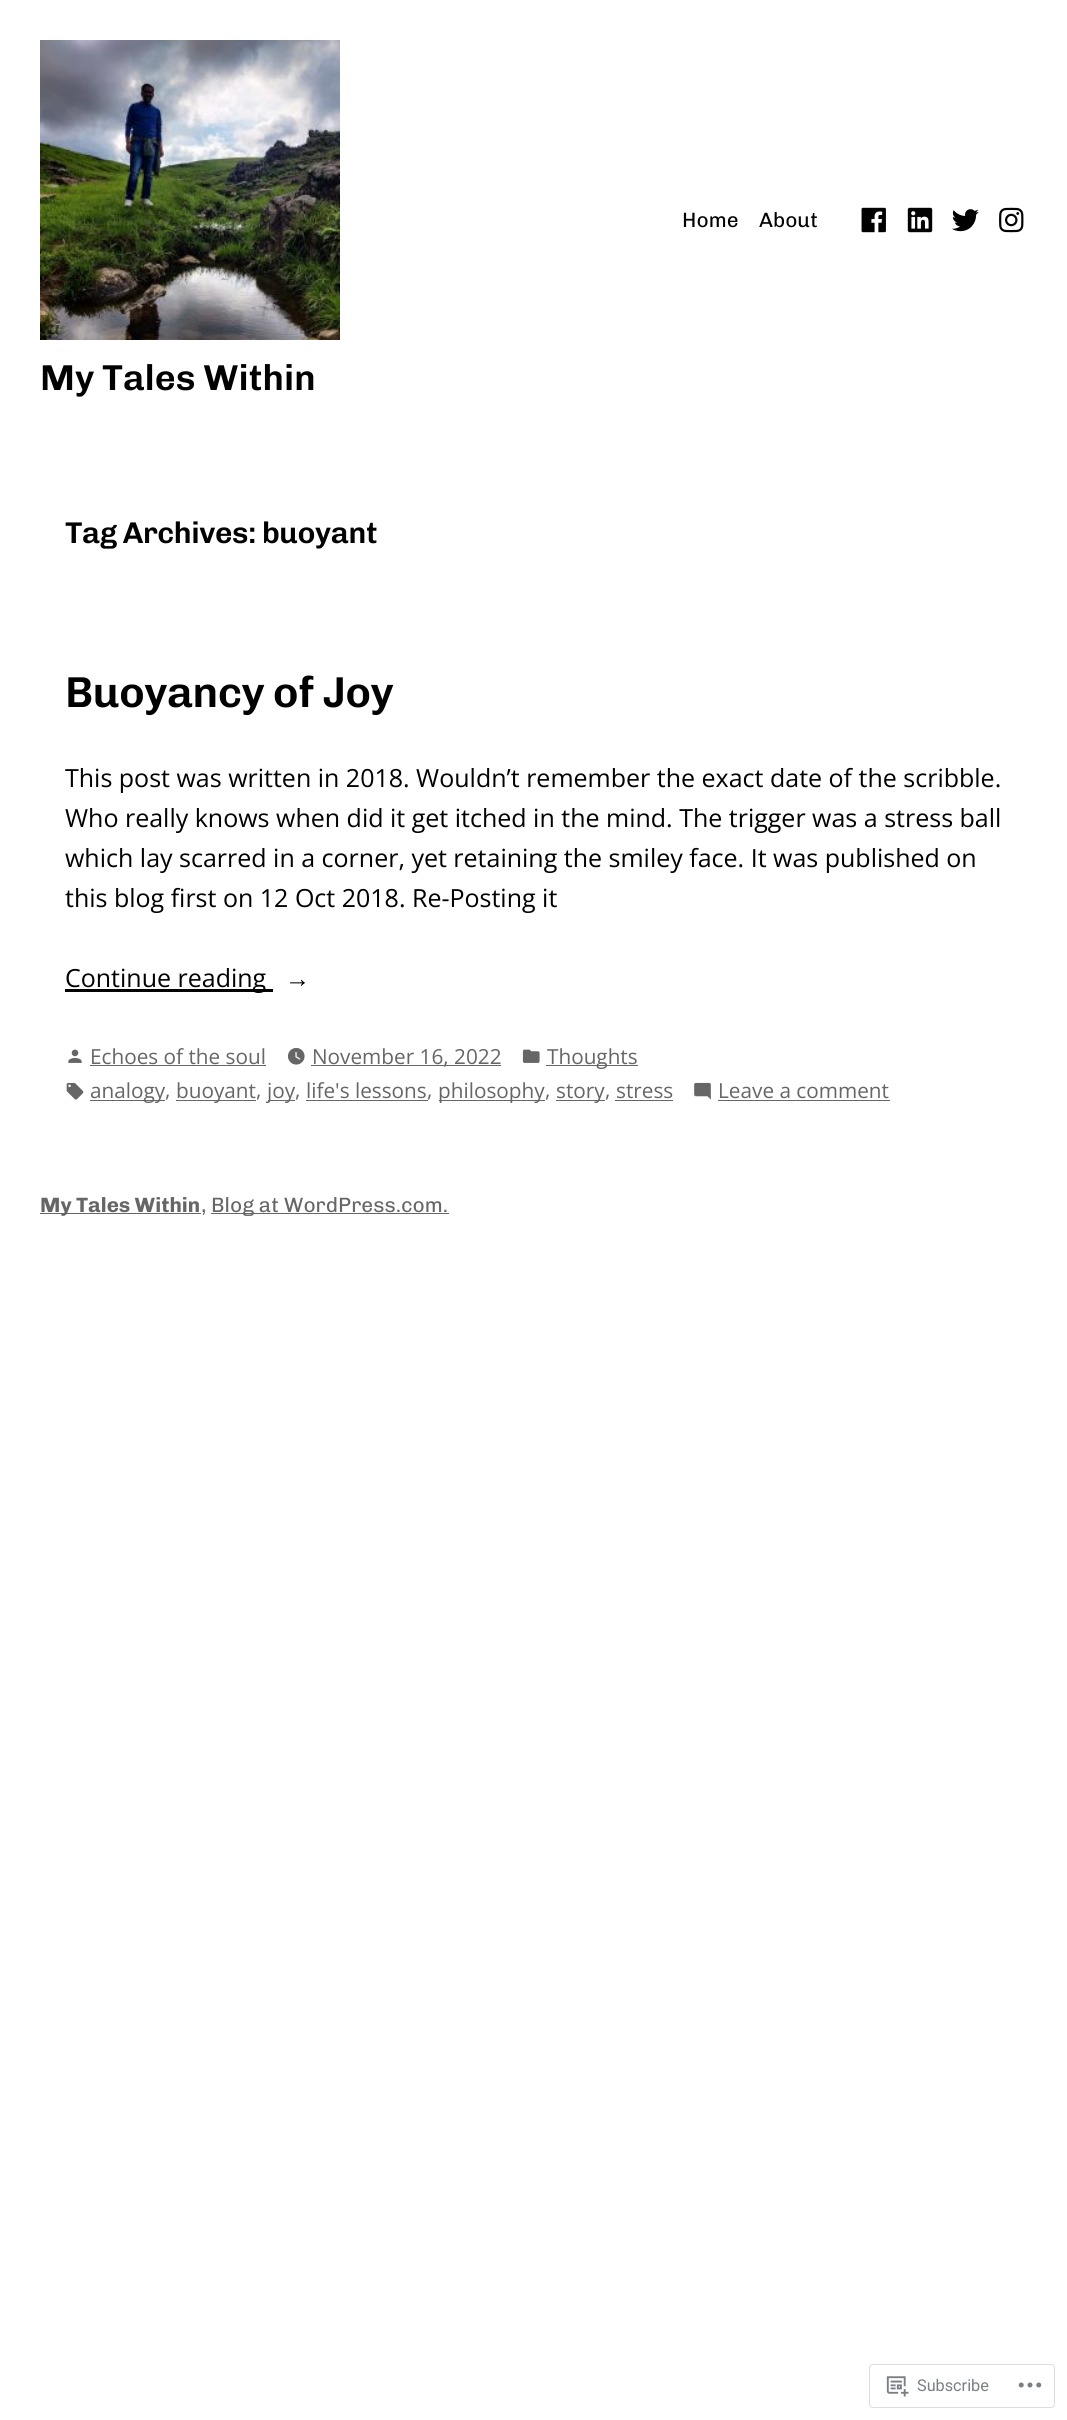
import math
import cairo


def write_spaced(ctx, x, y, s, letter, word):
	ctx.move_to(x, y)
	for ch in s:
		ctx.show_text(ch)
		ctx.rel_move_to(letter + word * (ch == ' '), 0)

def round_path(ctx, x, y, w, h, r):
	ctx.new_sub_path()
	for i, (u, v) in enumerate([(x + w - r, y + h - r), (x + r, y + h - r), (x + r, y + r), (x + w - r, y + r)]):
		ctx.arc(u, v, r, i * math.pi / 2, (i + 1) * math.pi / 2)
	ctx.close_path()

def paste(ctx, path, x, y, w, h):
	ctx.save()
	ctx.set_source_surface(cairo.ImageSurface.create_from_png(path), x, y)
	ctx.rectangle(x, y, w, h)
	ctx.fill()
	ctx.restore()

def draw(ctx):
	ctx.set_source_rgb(1, 1, 1)
	ctx.paint()
	ctx.select_font_face('Chivo')
	ctx.set_font_size(20.75)
	ctx.set_source_rgb(0.004, 0.004, 0.004)
	ctx.move_to(682, 227)
	ctx.show_text('Home')
	ctx.move_to(759, 227)
	ctx.show_text('About')
	paste(ctx, 'media/1.png', 861, 207, 25, 26)
	paste(ctx, 'media/2.png', 907, 207, 26, 26)
	paste(ctx, 'media/3.png', 952, 209, 27, 23)
	paste(ctx, 'media/4.png', 999, 207, 25, 26)
	paste(ctx, 'media/5.png', 40, 40, 300, 300)
	ctx.select_font_face('Chivo SemiBold')
	ctx.set_font_size(36)
	ctx.move_to(40, 390)
	ctx.show_text('My Tales Within')
	ctx.set_font_size(30)
	write_spaced(ctx, 65, 543, 'Tag Archives: buoyant', -0.45, 0)
	ctx.set_font_size(43.25)
	write_spaced(ctx, 65, 707, 'Buoyancy of Joy', -0.6, 0)
	ctx.select_font_face('Open Sans')
	ctx.set_font_size(25)
	for x, y, s in [
		(65, 787, 'This post was written in 2018. Wouldn’t remember the exact date of the scribble.'),
		(65, 827, 'Who really knows when did it get itched in the mind. The trigger was a stress ball'),
		(65, 867, 'which lay scarred in a corner, yet retaining the smiley face. It was published on'),
		(65, 907, 'this blog first on 12 Oct 2018. Re-Posting it'),
	]:
		ctx.move_to(x, y)
		ctx.show_text(s)
	ctx.rectangle(65, 989, 208, 3)
	ctx.fill()
	ctx.move_to(65, 987)
	ctx.show_text('Continue reading')
	ctx.select_font_face('Liberation Serif')
	ctx.move_to(285, 987)
	ctx.show_text('→')
	paste(ctx, 'media/6.png', 68, 1049, 14, 14)
	ctx.select_font_face('Open Sans')
	ctx.set_font_size(20.75)
	ctx.set_source_rgb(0.4, 0.4, 0.4)
	ctx.move_to(90, 1064)
	ctx.show_text('Echoes of the soul')
	ctx.rectangle(90, 1065, 176, 1)
	ctx.fill()
	paste(ctx, 'media/7.png', 287, 1047, 18, 18)
	ctx.rectangle(311, 1065, 190, 1)
	ctx.fill()
	ctx.move_to(312, 1064)
	ctx.show_text('November 16, 2022')
	paste(ctx, 'media/8.png', 522, 1049, 18, 14)
	ctx.rectangle(546, 1065, 92, 1)
	ctx.fill()
	ctx.move_to(547, 1064)
	ctx.show_text('Thoughts')
	paste(ctx, 'media/9.png', 66, 1082, 18, 18)
	ctx.rectangle(90, 1100, 75, 1)
	ctx.fill()
	ctx.move_to(90, 1098)
	ctx.show_text('analogy')
	ctx.move_to(165, 1097)
	ctx.show_text(',')
	ctx.rectangle(176, 1100, 80, 1)
	ctx.fill()
	ctx.move_to(176, 1098)
	ctx.show_text('buoyant')
	ctx.move_to(256, 1097)
	ctx.show_text(',')
	ctx.rectangle(268, 1100, 27, 1)
	ctx.fill()
	for x, y, s in [
		(267, 1098, 'joy'),
		(295, 1097, ','),
		(306, 1098, 'life\'s lessons'),
	]:
		ctx.move_to(x, y)
		ctx.show_text(s)
	ctx.rectangle(306, 1100, 122, 1)
	ctx.fill()
	ctx.move_to(427, 1097)
	ctx.show_text(',')
	ctx.rectangle(439, 1100, 106, 1)
	ctx.fill()
	ctx.move_to(438, 1098)
	ctx.show_text('philosophy')
	ctx.move_to(545, 1097)
	ctx.show_text(',')
	ctx.rectangle(556, 1100, 49, 1)
	ctx.fill()
	for x, y, s in [
		(556, 1098, 'story'),
		(605, 1097, ','),
		(616, 1098, 'stress'),
	]:
		ctx.move_to(x, y)
		ctx.show_text(s)
	ctx.rectangle(615, 1100, 58, 1)
	ctx.fill()
	paste(ctx, 'media/10.png', 694, 1082, 17, 18)
	ctx.move_to(718, 1098)
	ctx.show_text('Leave a comment')
	ctx.rectangle(718, 1100, 172, 1)
	ctx.fill()
	ctx.rectangle(40, 1213, 161, 1)
	ctx.fill()
	ctx.select_font_face('Chivo', cairo.FONT_SLANT_NORMAL, cairo.FONT_WEIGHT_BOLD)
	ctx.move_to(40, 1212)
	ctx.show_text('My Tales Within')
	ctx.select_font_face('Chivo')
	ctx.move_to(201, 1212)
	ctx.show_text(',')
	ctx.rectangle(211, 1213, 238, 1)
	ctx.fill()
	ctx.move_to(211, 1212)
	ctx.show_text('Blog at WordPress.com.')
	round_path(ctx, 869.5, 2364.5, 185, 43, 3.5)
	ctx.set_source_rgb(0.867, 0.867, 0.875)
	ctx.set_line_width(1)
	ctx.stroke()
	paste(ctx, 'media/11.png', 886, 2376, 23, 21)
	ctx.select_font_face('Roboto')
	ctx.set_font_size(16.25)
	ctx.set_source_rgb(0.482, 0.498, 0.522)
	ctx.move_to(917, 2391)
	ctx.show_text('Subscribe')
	paste(ctx, 'media/12.png', 1018, 2382, 24, 6)


surface = cairo.ImageSurface(cairo.FORMAT_RGB24, 1067, 2420)
ctx = cairo.Context(surface)
options = cairo.FontOptions()
options.set_hint_metrics(cairo.HINT_METRICS_OFF)
options.set_hint_style(cairo.HINT_STYLE_NONE)
ctx.set_font_options(options)
ctx.set_miter_limit(4)
draw(ctx)
surface.write_to_png('image.png')
